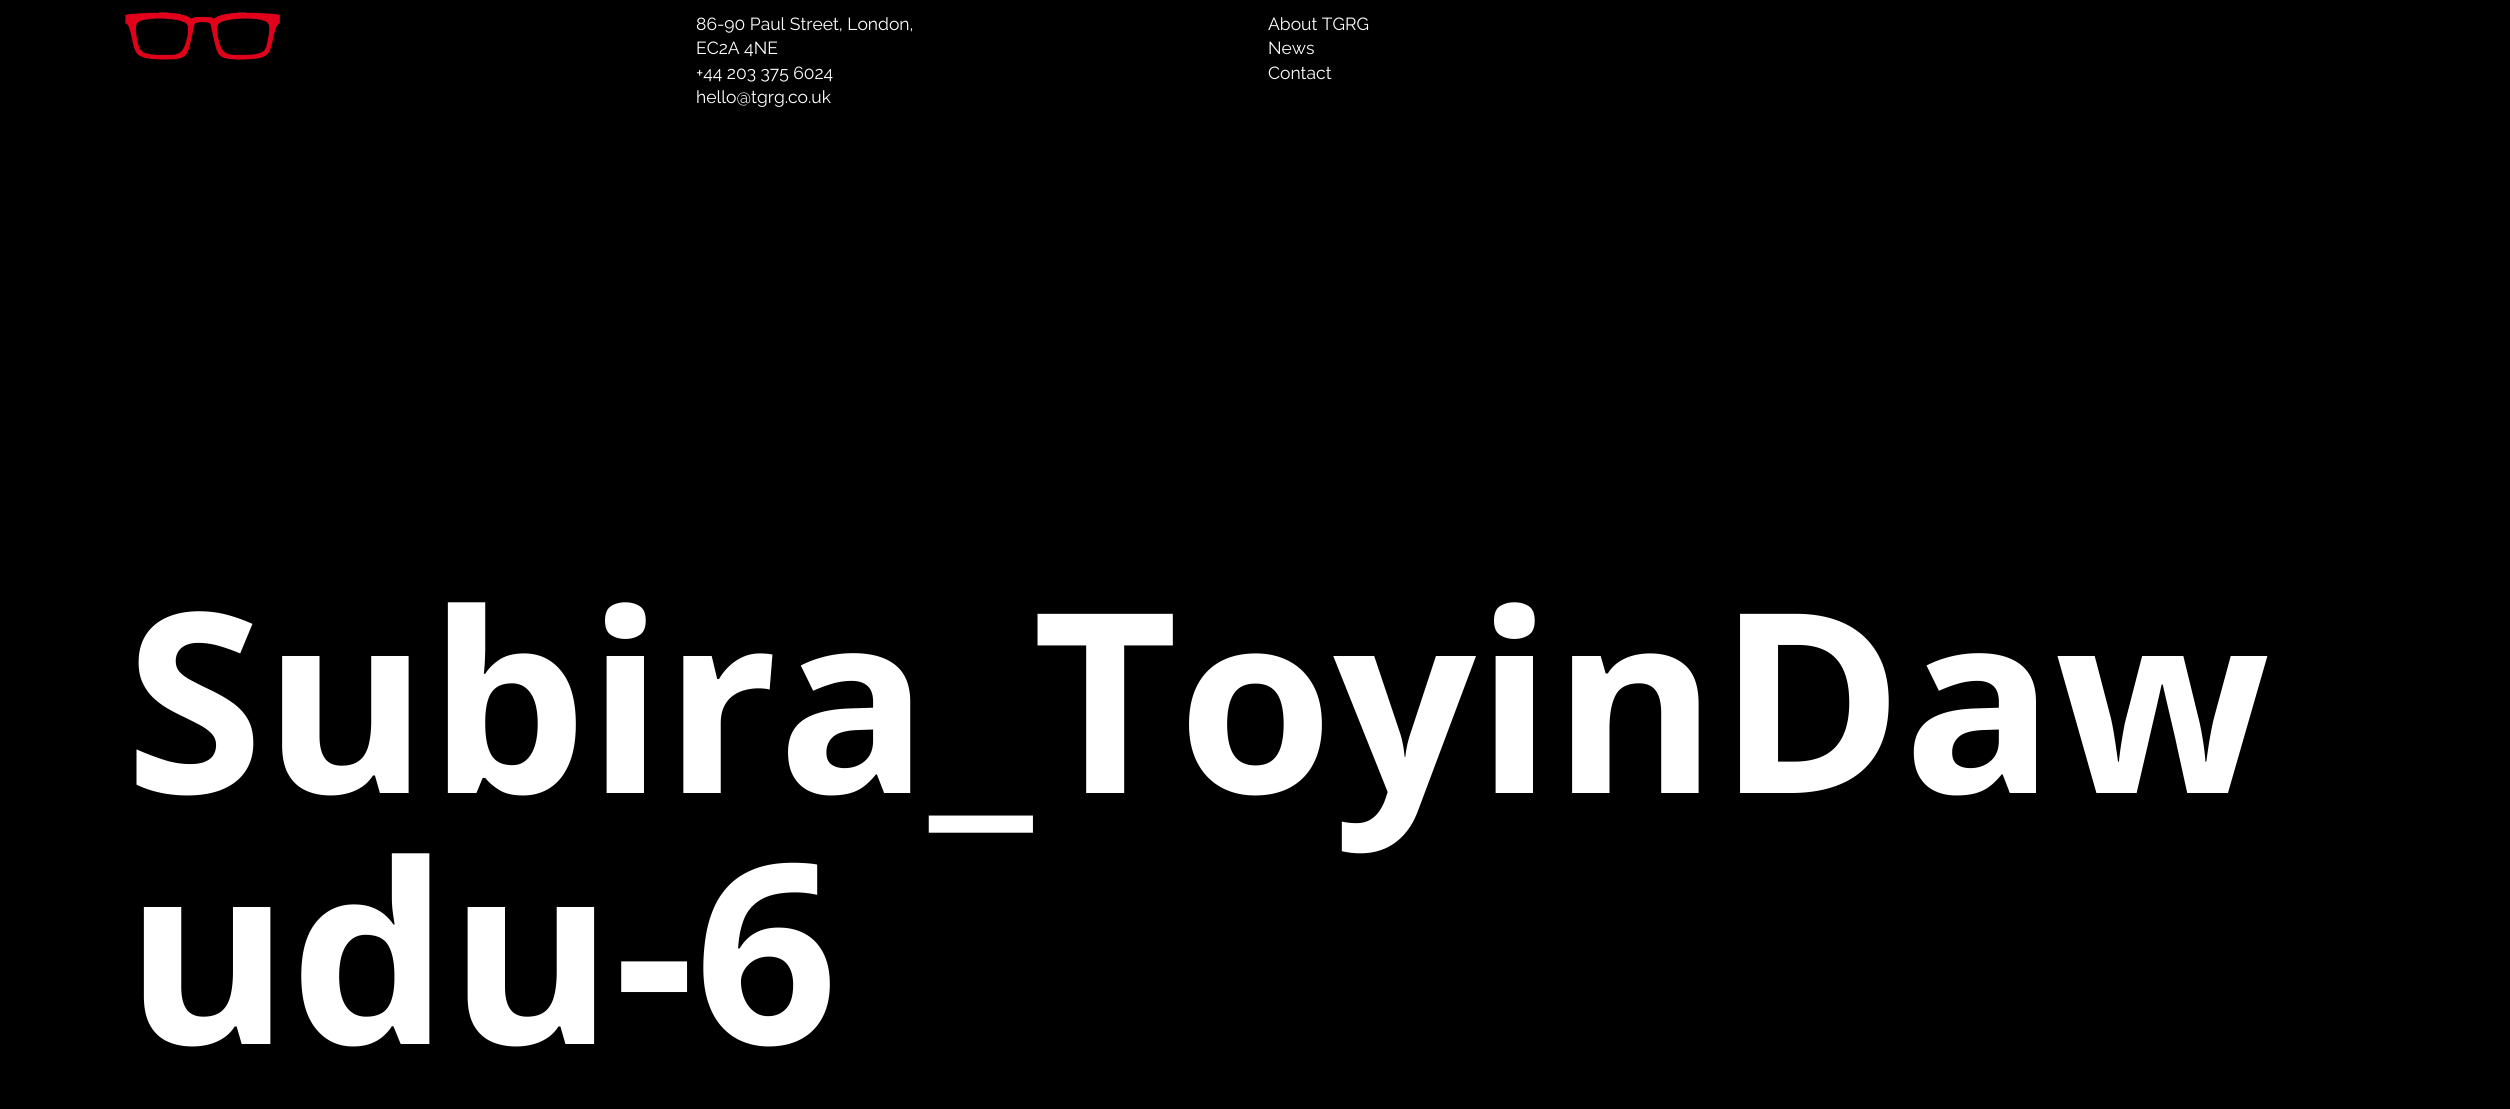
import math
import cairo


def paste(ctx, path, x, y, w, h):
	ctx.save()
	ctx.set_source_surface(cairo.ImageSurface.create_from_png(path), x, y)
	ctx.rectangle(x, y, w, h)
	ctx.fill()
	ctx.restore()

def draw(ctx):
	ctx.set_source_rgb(0, 0, 0)
	ctx.paint()
	paste(ctx, 'media/1.png', 125, 12, 155, 48)
	ctx.select_font_face('Raleway')
	ctx.set_font_size(17.5)
	ctx.set_source_rgb(1, 1, 1)
	for x, y, s in [
		(696, 30, '86-90 Paul Street, London,'),
		(696, 54, 'EC2A 4NE'),
		(696, 79, '+44 203 375 6024'),
		(696, 103, 'hello@tgrg.co.uk'),
		(1268, 30, 'About TGRG'),
		(1268, 54, 'News'),
		(1268, 79, 'Contact'),
	]:
		ctx.move_to(x, y)
		ctx.show_text(s)
	ctx.select_font_face('Open Sans', cairo.FONT_SLANT_NORMAL, cairo.FONT_WEIGHT_BOLD)
	ctx.set_font_size(251)
	ctx.move_to(125, 793)
	ctx.show_text('Subira_ToyinDaw')
	ctx.move_to(125, 1044)
	ctx.show_text('udu-6')


surface = cairo.ImageSurface(cairo.FORMAT_RGB24, 2510, 1109)
ctx = cairo.Context(surface)
options = cairo.FontOptions()
options.set_hint_metrics(cairo.HINT_METRICS_OFF)
options.set_hint_style(cairo.HINT_STYLE_NONE)
ctx.set_font_options(options)
ctx.set_miter_limit(4)
draw(ctx)
surface.write_to_png('image.png')
